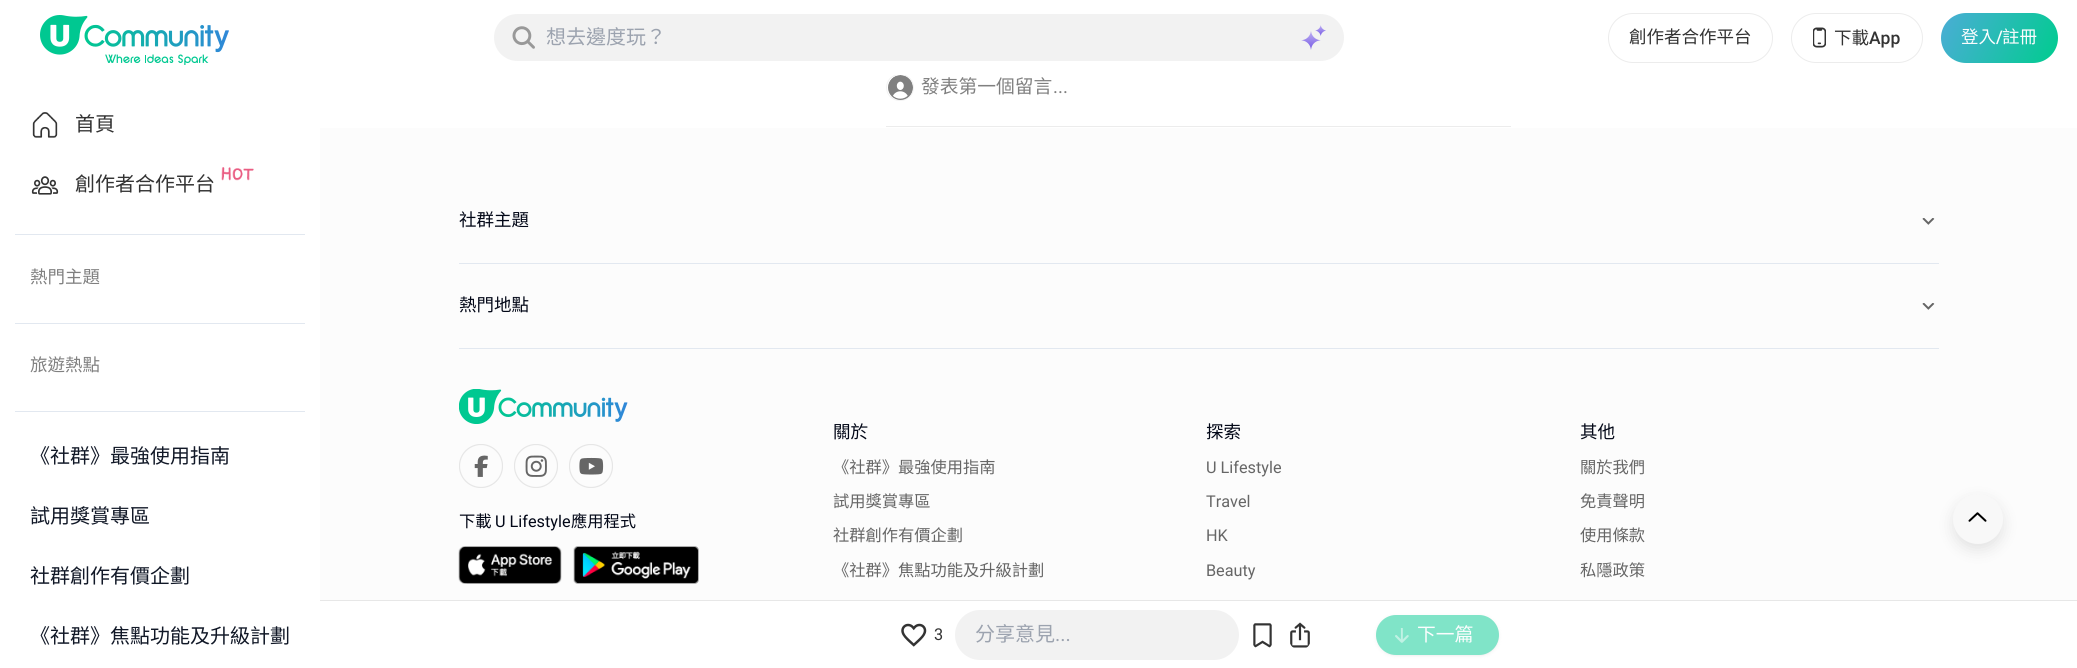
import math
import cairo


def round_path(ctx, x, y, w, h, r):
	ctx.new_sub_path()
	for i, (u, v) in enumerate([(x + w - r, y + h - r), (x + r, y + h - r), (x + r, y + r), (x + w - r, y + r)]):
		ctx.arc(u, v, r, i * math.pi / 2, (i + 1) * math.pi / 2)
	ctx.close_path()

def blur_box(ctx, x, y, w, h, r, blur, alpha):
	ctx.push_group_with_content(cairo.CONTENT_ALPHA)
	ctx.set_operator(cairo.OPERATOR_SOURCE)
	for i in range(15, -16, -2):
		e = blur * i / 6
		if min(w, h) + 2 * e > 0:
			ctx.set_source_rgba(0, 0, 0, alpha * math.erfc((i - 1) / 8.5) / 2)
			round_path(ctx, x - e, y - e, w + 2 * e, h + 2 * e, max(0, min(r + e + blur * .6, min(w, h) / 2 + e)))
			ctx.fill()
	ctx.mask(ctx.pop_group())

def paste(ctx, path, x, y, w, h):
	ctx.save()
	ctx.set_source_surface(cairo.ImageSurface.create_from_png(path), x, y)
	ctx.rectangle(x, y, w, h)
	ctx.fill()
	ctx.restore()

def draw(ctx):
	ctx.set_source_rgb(1, 1, 1)
	ctx.paint()
	round_path(ctx, 886.5, 74.5, 27, 26, 13)
	ctx.set_source_rgb(0.949, 0.949, 0.949)
	ctx.set_line_width(1)
	ctx.stroke()
	ctx.set_source_rgb(1, 1, 1)
	ctx.rectangle(895, 74, 10, 1)
	ctx.fill()
	paste(ctx, 'media/1.png', 40, 15, 189, 50)
	ctx.set_source_rgb(0.949, 0.949, 0.949)
	round_path(ctx, 494, 14, 850, 47, 23.5)
	ctx.fill()
	paste(ctx, 'media/2.png', 512, 26, 23, 23)
	ctx.select_font_face('Noto Sans CJK HK')
	ctx.set_font_size(20)
	ctx.set_source_rgb(0.612, 0.639, 0.686)
	ctx.move_to(546, 44)
	ctx.show_text('想去邊度玩？')
	paste(ctx, 'media/3.png', 1301, 25, 25, 25)
	round_path(ctx, 1608.5, 13.5, 164, 49, 24.5)
	ctx.set_source_rgb(0.922, 0.922, 0.922)
	ctx.stroke()
	ctx.set_font_size(17.5)
	ctx.set_source_rgb(0.2, 0.2, 0.2)
	ctx.move_to(1629, 43)
	ctx.show_text('創作者合作平台')
	round_path(ctx, 1791.5, 13.5, 131, 49, 24.5)
	ctx.set_source_rgb(0.922, 0.922, 0.922)
	ctx.stroke()
	paste(ctx, 'media/4.png', 1813, 27, 13, 21)
	ctx.set_source_rgb(0.2, 0.2, 0.2)
	ctx.move_to(1834, 44)
	ctx.show_text('下載')
	ctx.select_font_face('Roboto Medium')
	ctx.move_to(1869, 44)
	ctx.show_text('App')
	gradient = cairo.LinearGradient(1942, 11, 2057, 64)
	gradient.add_color_stop_rgba(0, 0.294, 0.678, 0.839, 1)
	gradient.add_color_stop_rgba(1, 0, 0.8, 0.561, 1)
	ctx.set_source(gradient)
	round_path(ctx, 1941, 13, 117, 50, 25)
	ctx.fill()
	ctx.select_font_face('Noto Sans CJK HK')
	ctx.set_source_rgb(0.988, 0.992, 0.996)
	ctx.move_to(1961, 43)
	ctx.show_text('登入')
	ctx.select_font_face('Roboto Medium')
	ctx.move_to(1996, 43)
	ctx.show_text('/')
	ctx.select_font_face('Noto Sans CJK HK')
	ctx.move_to(2002, 43)
	ctx.show_text('註冊')
	paste(ctx, 'media/5.png', 32, 112, 26, 26)
	ctx.set_font_size(20)
	ctx.set_source_rgb(0.2, 0.2, 0.2)
	ctx.move_to(75, 131)
	ctx.show_text('首頁')
	paste(ctx, 'media/6.png', 31, 176, 28, 19)
	ctx.move_to(75, 191)
	ctx.show_text('創作者合作平台')
	paste(ctx, 'media/7.png', 221, 167, 33, 14)
	ctx.set_source_rgb(0.886, 0.91, 0.941)
	ctx.rectangle(15, 234, 290, 1)
	ctx.fill()
	ctx.set_font_size(17.5)
	ctx.set_source_rgb(0.502, 0.502, 0.502)
	ctx.move_to(30, 283)
	ctx.show_text('熱門主題')
	ctx.set_source_rgb(0.886, 0.91, 0.941)
	ctx.rectangle(15, 323, 290, 1)
	ctx.fill()
	ctx.set_source_rgb(0.502, 0.502, 0.502)
	ctx.move_to(30, 371)
	ctx.show_text('旅遊熱點')
	ctx.set_source_rgb(0.886, 0.91, 0.941)
	ctx.rectangle(15, 411, 290, 1)
	ctx.fill()
	ctx.set_font_size(20)
	ctx.set_source_rgb(0.067, 0.094, 0.153)
	for x, y, s in [
		(30, 463, '《社群》最強使用指南'),
		(30, 523, '試用獎賞專區'),
		(30, 583, '社群創作有價企劃'),
		(30, 643, '《社群》焦點功能及升級計劃'),
	]:
		ctx.move_to(x, y)
		ctx.show_text(s)
	ctx.set_source_rgb(0.922, 0.922, 0.922)
	ctx.rectangle(886, 126, 625, 1)
	ctx.fill()
	paste(ctx, 'media/8.png', 888, 75, 25, 25)
	ctx.set_font_size(18.75)
	ctx.set_source_rgb(0.502, 0.502, 0.502)
	ctx.move_to(921, 93)
	ctx.show_text('發表第一個留言')
	ctx.select_font_face('Roboto')
	ctx.move_to(1053, 93)
	ctx.show_text('...')
	ctx.set_source_rgb(0.988, 0.988, 0.988)
	ctx.rectangle(320, 128, 1757, 472)
	ctx.fill()
	ctx.select_font_face('Noto Sans CJK HK')
	ctx.set_font_size(17.5)
	ctx.set_source_rgb(0.008, 0.031, 0.09)
	ctx.move_to(459, 226)
	ctx.show_text('社群主題')
	paste(ctx, 'media/9.png', 1922, 218, 13, 7)
	ctx.set_source_rgb(0.886, 0.91, 0.941)
	ctx.rectangle(459, 263, 1480, 1)
	ctx.fill()
	ctx.set_source_rgb(0.008, 0.031, 0.09)
	ctx.move_to(459, 311)
	ctx.show_text('熱門地點')
	paste(ctx, 'media/9.png', 1922, 303, 13, 7)
	ctx.set_source_rgb(0.886, 0.91, 0.941)
	ctx.rectangle(459, 348, 1480, 1)
	ctx.fill()
	paste(ctx, 'media/10.png', 459, 389, 169, 35)
	paste(ctx, 'media/11.png', 459, 444, 44, 44)
	paste(ctx, 'media/12.png', 514, 444, 44, 44)
	paste(ctx, 'media/13.png', 569, 444, 44, 44)
	ctx.set_font_size(16.25)
	ctx.set_source_rgb(0.008, 0.031, 0.09)
	ctx.move_to(459, 527)
	ctx.show_text('下載')
	ctx.select_font_face('Roboto')
	ctx.move_to(495, 527)
	ctx.show_text('U Lifestyle')
	ctx.select_font_face('Noto Sans CJK HK')
	ctx.move_to(571, 527)
	ctx.show_text('應用程式')
	paste(ctx, 'media/14.png', 458, 546, 104, 38)
	paste(ctx, 'media/15.png', 573, 546, 126, 38)
	ctx.set_font_size(17.5)
	ctx.move_to(833, 438)
	ctx.show_text('關於')
	ctx.set_font_size(16.25)
	ctx.set_source_rgb(0.4, 0.4, 0.4)
	for x, y, s in [
		(833, 473, '《社群》最強使用指南'),
		(833, 507, '試用獎賞專區'),
		(833, 541, '社群創作有價企劃'),
		(833, 576, '《社群》焦點功能及升級計劃'),
	]:
		ctx.move_to(x, y)
		ctx.show_text(s)
	ctx.set_font_size(17.5)
	ctx.set_source_rgb(0.008, 0.031, 0.09)
	ctx.move_to(1206, 438)
	ctx.show_text('探索')
	ctx.select_font_face('Roboto')
	ctx.set_font_size(16.25)
	ctx.set_source_rgb(0.4, 0.4, 0.4)
	for x, y, s in [
		(1206, 473, 'U Lifestyle'),
		(1206, 507, 'Travel'),
		(1206, 541, 'HK'),
		(1206, 576, 'Beauty'),
	]:
		ctx.move_to(x, y)
		ctx.show_text(s)
	ctx.select_font_face('Noto Sans CJK HK')
	ctx.set_font_size(17.5)
	ctx.set_source_rgb(0.008, 0.031, 0.09)
	ctx.move_to(1580, 438)
	ctx.show_text('其他')
	ctx.set_font_size(16.25)
	ctx.set_source_rgb(0.4, 0.4, 0.4)
	for x, y, s in [
		(1580, 473, '關於我們'),
		(1580, 507, '免責聲明'),
		(1580, 541, '使用條款'),
		(1580, 576, '私隱政策'),
	]:
		ctx.move_to(x, y)
		ctx.show_text(s)
	ctx.set_source_rgb(0.906, 0.906, 0.906)
	ctx.rectangle(320, 600, 1757, 1)
	ctx.fill()
	paste(ctx, 'media/16.png', 901, 623, 26, 24)
	ctx.select_font_face('Roboto')
	ctx.set_source_rgb(0.2, 0.2, 0.2)
	ctx.move_to(934, 640)
	ctx.show_text('3')
	ctx.set_source_rgb(0.949, 0.949, 0.949)
	round_path(ctx, 955, 610, 284, 50, 25)
	ctx.fill()
	ctx.select_font_face('Noto Sans CJK HK')
	ctx.set_font_size(20)
	ctx.set_source_rgb(0.612, 0.639, 0.686)
	ctx.move_to(975, 641)
	ctx.show_text('分享意見')
	ctx.select_font_face('Roboto')
	ctx.move_to(1055, 641)
	ctx.show_text('...')
	paste(ctx, 'media/17.png', 1253, 623, 19, 25)
	paste(ctx, 'media/18.png', 1290, 622, 20, 26)
	ctx.set_source_rgb(0.502, 0.502, 0.502)
	blur_box(ctx, 1378, 618, 120, 37, 18.5, 1, 0.1)
	blur_box(ctx, 1376, 616, 123, 40, 20, 2, 0.1)
	ctx.set_source_rgb(0.502, 0.894, 0.784)
	round_path(ctx, 1376, 615, 123, 40, 20)
	ctx.fill()
	paste(ctx, 'media/19.png', 1395, 628, 14, 15)
	ctx.select_font_face('Noto Sans CJK HK')
	ctx.set_font_size(18.75)
	ctx.set_source_rgb(0.988, 0.992, 0.996)
	ctx.move_to(1417, 641)
	ctx.show_text('下一篇')
	ctx.set_source_rgb(0, 0, 0)
	blur_box(ctx, 1953, 500, 50, 50, 25, 7.5, 0.1)
	ctx.set_source_rgb(0.969, 0.969, 0.969)
	ctx.arc(1978, 519, 25, 0, 2 * math.pi)
	ctx.fill()
	paste(ctx, 'media/20.png', 1968, 512, 19, 10)


surface = cairo.ImageSurface(cairo.FORMAT_RGB24, 2077, 668)
ctx = cairo.Context(surface)
options = cairo.FontOptions()
options.set_hint_metrics(cairo.HINT_METRICS_OFF)
options.set_hint_style(cairo.HINT_STYLE_NONE)
ctx.set_font_options(options)
ctx.set_miter_limit(4)
draw(ctx)
surface.write_to_png('image.png')
